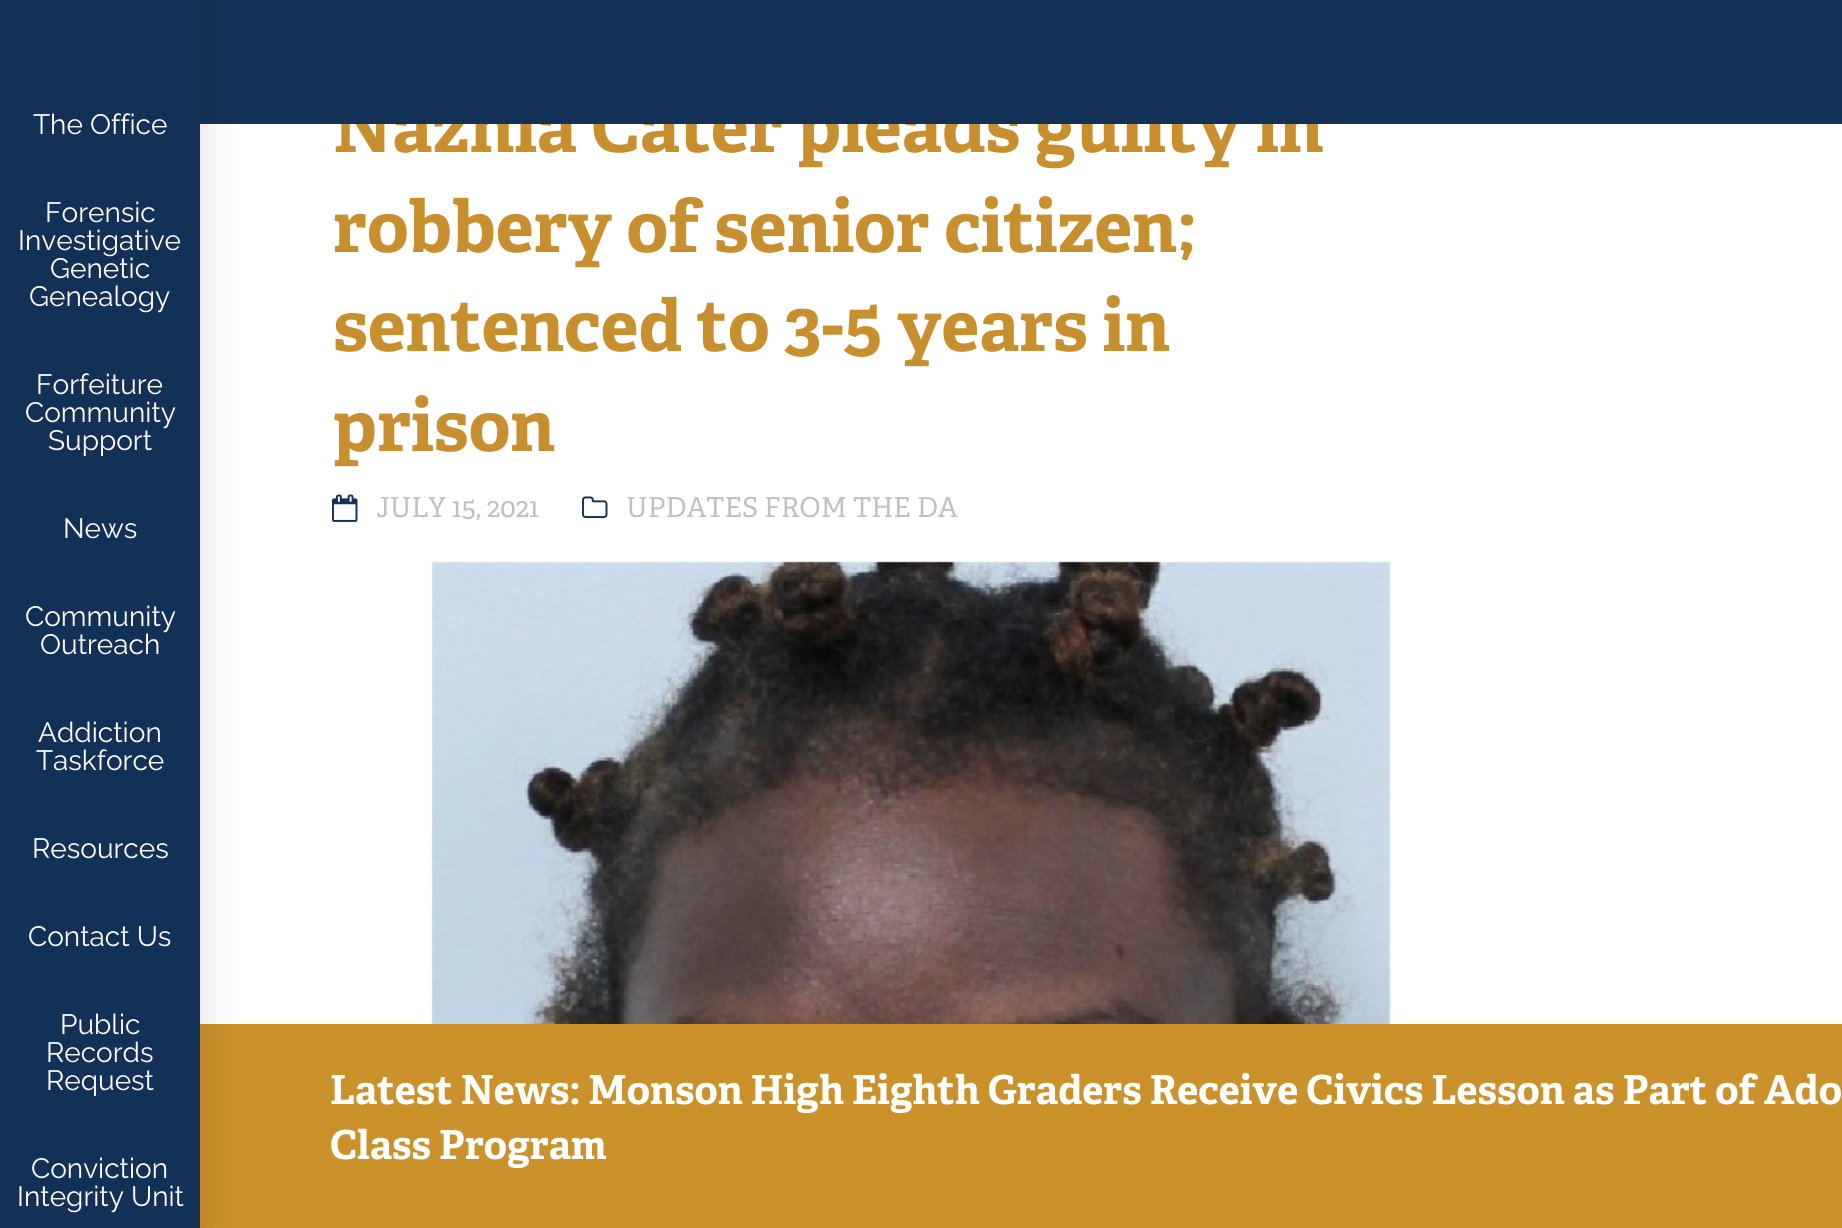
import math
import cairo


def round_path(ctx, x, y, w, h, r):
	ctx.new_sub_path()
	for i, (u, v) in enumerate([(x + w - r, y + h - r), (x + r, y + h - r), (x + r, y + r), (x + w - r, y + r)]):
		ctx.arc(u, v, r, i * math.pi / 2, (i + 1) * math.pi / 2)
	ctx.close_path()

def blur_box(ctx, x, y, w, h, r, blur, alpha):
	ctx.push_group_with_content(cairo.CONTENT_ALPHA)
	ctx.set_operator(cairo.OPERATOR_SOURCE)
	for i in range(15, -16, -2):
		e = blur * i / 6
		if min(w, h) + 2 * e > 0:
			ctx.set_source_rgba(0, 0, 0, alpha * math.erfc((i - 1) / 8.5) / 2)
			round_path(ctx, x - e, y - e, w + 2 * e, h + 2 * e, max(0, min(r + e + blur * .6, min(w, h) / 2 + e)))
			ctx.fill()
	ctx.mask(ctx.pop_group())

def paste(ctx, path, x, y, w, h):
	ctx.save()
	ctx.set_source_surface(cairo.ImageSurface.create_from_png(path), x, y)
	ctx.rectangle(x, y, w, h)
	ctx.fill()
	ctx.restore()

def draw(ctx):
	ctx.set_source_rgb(1, 1, 1)
	ctx.paint()
	ctx.select_font_face('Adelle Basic', cairo.FONT_SLANT_NORMAL, cairo.FONT_WEIGHT_BOLD)
	ctx.set_font_size(71.75)
	ctx.set_source_rgb(0.78, 0.561, 0.18)
	ctx.move_to(333, 152)
	ctx.show_text('Nazhia Cater pleads guilty in')
	ctx.set_source_rgb(0.078, 0.192, 0.341)
	ctx.rectangle(200, 0, 1642, 124)
	ctx.fill()
	ctx.set_source_rgb(0.796, 0.573, 0.169)
	ctx.rectangle(200, 1024, 1642, 204)
	ctx.fill()
	ctx.set_source_rgb(0, 0, 0)
	blur_box(ctx, -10, 0, 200, 1228, 0, 22, 0.25)
	ctx.set_source_rgb(0.078, 0.192, 0.341)
	ctx.rectangle(0, 0, 200, 1228)
	ctx.fill()
	ctx.select_font_face('Raleway')
	ctx.set_font_size(28)
	ctx.set_source_rgb(1, 1, 1)
	for x, y, s in [
		(33, 134, 'The Office'),
		(45, 222, 'Forensic'),
		(18, 250, 'Investigative'),
		(50, 278, 'Genetic'),
		(29, 306, 'Genealogy'),
		(36, 394, 'Forfeiture'),
		(25, 422, 'Community'),
		(48, 450, 'Support'),
		(63, 538, 'News'),
		(25, 626, 'Community'),
		(40, 654, 'Outreach'),
		(38, 742, 'Addiction'),
		(36, 770, 'Taskforce'),
		(32, 858, 'Resources'),
		(28, 946, 'Contact Us'),
		(60, 1034, 'Public'),
		(46, 1062, 'Records'),
		(46, 1090, 'Request'),
		(31, 1178, 'Conviction'),
		(17, 1206, 'Integrity Unit'),
	]:
		ctx.move_to(x, y)
		ctx.show_text(s)
	ctx.select_font_face('Adelle Basic', cairo.FONT_SLANT_NORMAL, cairo.FONT_WEIGHT_BOLD)
	ctx.set_font_size(71.75)
	ctx.set_source_rgb(0.78, 0.561, 0.18)
	for x, y, s in [
		(333, 252, 'robbery of senior citizen;'),
		(333, 351, 'sentenced to 3-5 years in'),
		(333, 451, 'prison'),
	]:
		ctx.move_to(x, y)
		ctx.show_text(s)
	paste(ctx, 'media/1.png', 332, 494, 26, 28)
	ctx.select_font_face('Adelle Basic')
	ctx.set_font_size(27.5)
	ctx.set_source_rgb(0.745, 0.753, 0.761)
	ctx.move_to(376, 517)
	ctx.show_text('JULY 15, 2021')
	paste(ctx, 'media/2.png', 582, 496, 26, 22)
	ctx.move_to(626, 517)
	ctx.show_text('UPDATES FROM THE DA')
	paste(ctx, 'media/3.png', 431, 561, 961, 463)
	ctx.select_font_face('Adelle Basic', cairo.FONT_SLANT_NORMAL, cairo.FONT_WEIGHT_BOLD)
	ctx.set_font_size(40)
	ctx.set_source_rgb(1, 1, 1)
	ctx.move_to(330, 1104)
	ctx.show_text('Latest News: Monson High Eighth Graders Receive Civics Lesson as Part of Ado')
	ctx.move_to(330, 1159)
	ctx.show_text('Class Program')


surface = cairo.ImageSurface(cairo.FORMAT_RGB24, 1842, 1228)
ctx = cairo.Context(surface)
options = cairo.FontOptions()
options.set_hint_metrics(cairo.HINT_METRICS_OFF)
options.set_hint_style(cairo.HINT_STYLE_NONE)
ctx.set_font_options(options)
ctx.set_miter_limit(4)
draw(ctx)
surface.write_to_png('image.png')
